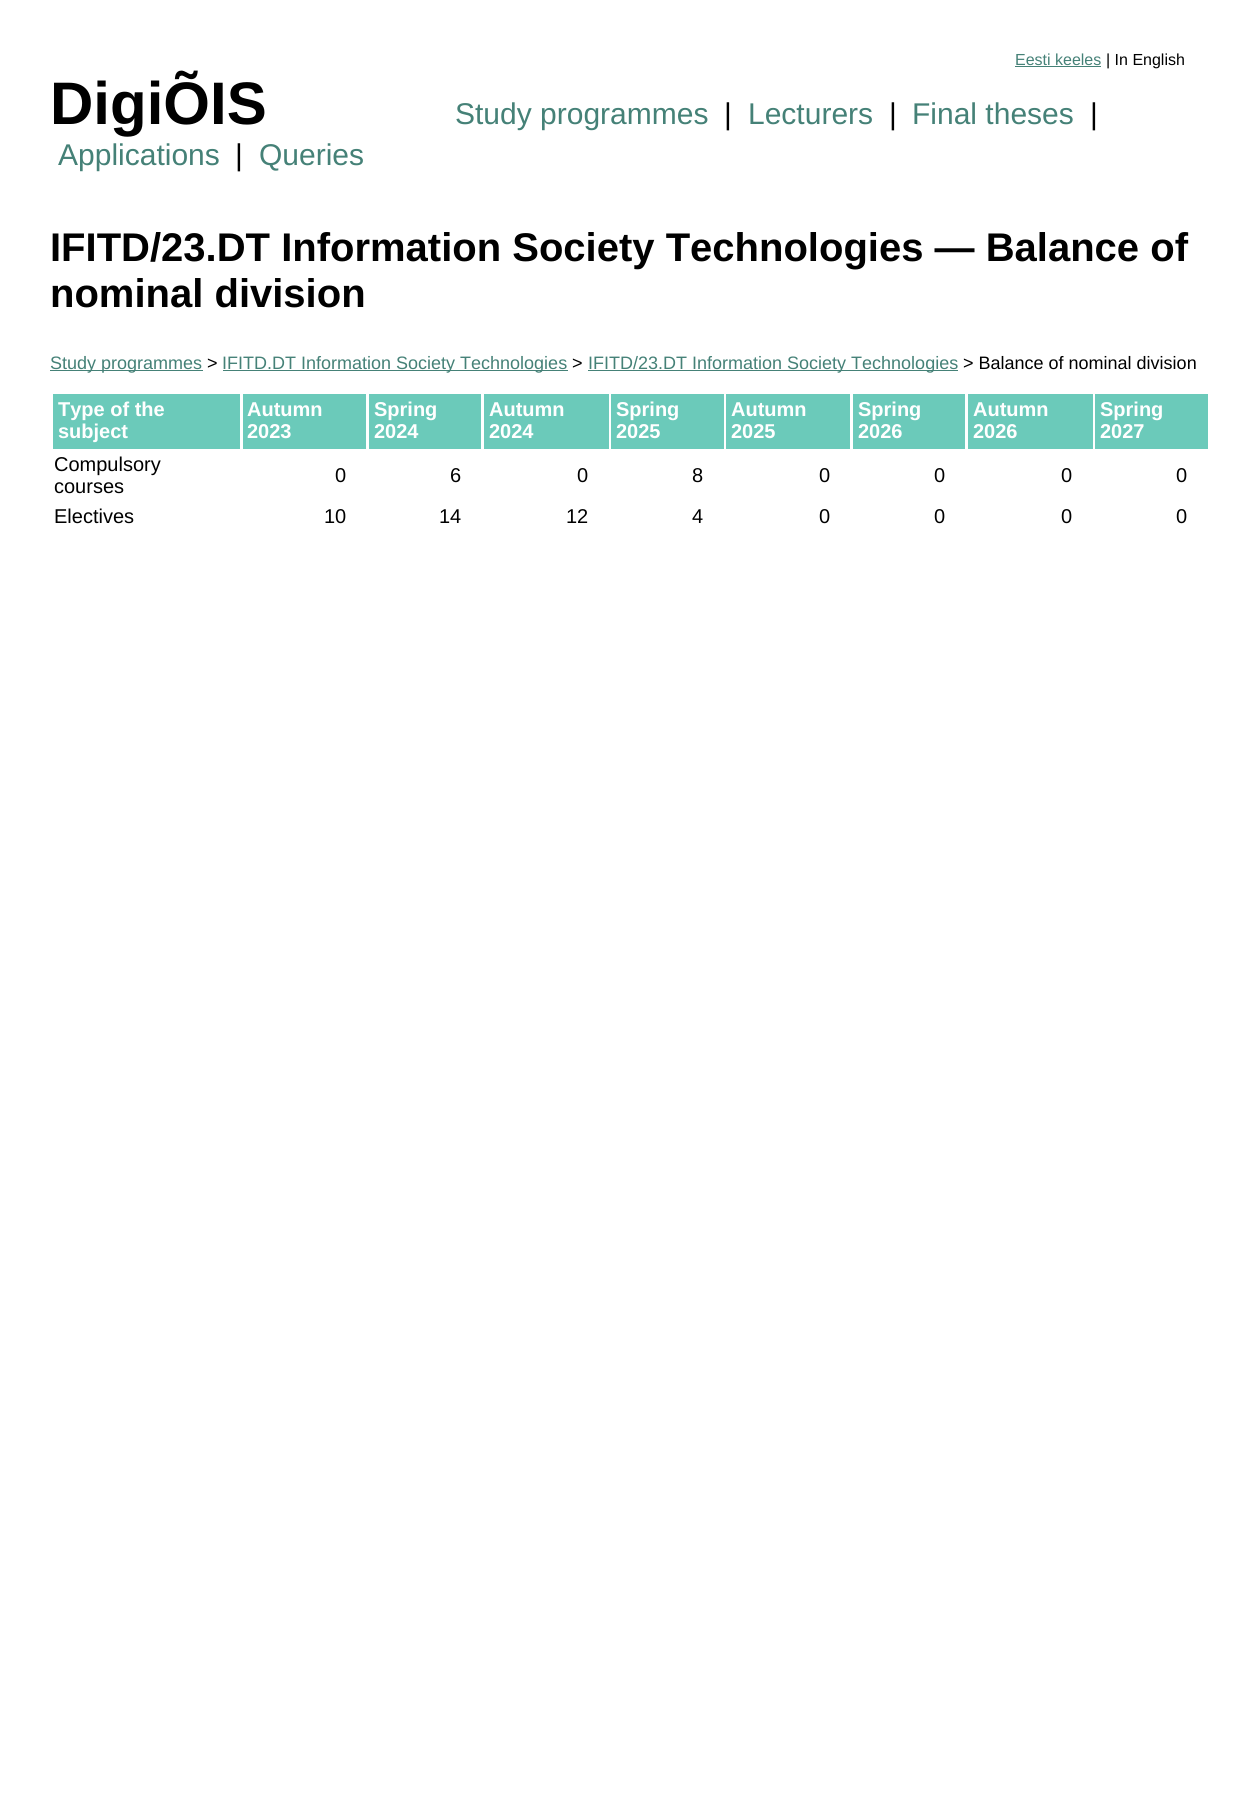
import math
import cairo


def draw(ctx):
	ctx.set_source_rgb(1, 1, 1)
	ctx.paint()
	ctx.select_font_face('Liberation Sans')
	ctx.set_font_size(16)
	ctx.set_source_rgb(0.271, 0.506, 0.467)
	ctx.move_to(1015, 65)
	ctx.show_text('Eesti keeles')
	ctx.rectangle(1015, 66, 86, 1)
	ctx.fill()
	ctx.set_source_rgb(0, 0, 0)
	ctx.move_to(1106, 65)
	ctx.show_text('| In English')
	ctx.select_font_face('Liberation Sans', cairo.FONT_SLANT_NORMAL, cairo.FONT_WEIGHT_BOLD)
	ctx.set_font_size(60)
	ctx.move_to(50, 124)
	ctx.show_text('DigiÕIS')
	ctx.select_font_face('Liberation Sans')
	ctx.set_font_size(30)
	ctx.set_source_rgb(0.271, 0.506, 0.467)
	ctx.move_to(455, 124)
	ctx.show_text('Study programmes')
	ctx.set_source_rgb(0, 0, 0)
	ctx.move_to(724, 124)
	ctx.show_text('|')
	ctx.set_source_rgb(0.271, 0.506, 0.467)
	ctx.move_to(748, 124)
	ctx.show_text('Lecturers')
	ctx.set_source_rgb(0, 0, 0)
	ctx.move_to(889, 124)
	ctx.show_text('|')
	ctx.set_source_rgb(0.271, 0.506, 0.467)
	ctx.move_to(912, 124)
	ctx.show_text('Final theses')
	ctx.set_source_rgb(0, 0, 0)
	ctx.move_to(1090, 124)
	ctx.show_text('|')
	ctx.set_source_rgb(0.271, 0.506, 0.467)
	ctx.move_to(58, 165)
	ctx.show_text('Applications')
	ctx.set_source_rgb(0, 0, 0)
	ctx.move_to(235, 165)
	ctx.show_text('|')
	ctx.set_source_rgb(0.271, 0.506, 0.467)
	ctx.move_to(259, 165)
	ctx.show_text('Queries')
	ctx.select_font_face('Liberation Sans', cairo.FONT_SLANT_NORMAL, cairo.FONT_WEIGHT_BOLD)
	ctx.set_font_size(40)
	ctx.set_source_rgb(0, 0, 0)
	ctx.move_to(50, 261)
	ctx.show_text('IFITD/23.DT Information Society Technologies — Balance of')
	ctx.move_to(50, 307)
	ctx.show_text('nominal division')
	ctx.set_source_rgb(0.271, 0.506, 0.467)
	ctx.rectangle(50, 370, 153, 1)
	ctx.fill()
	ctx.select_font_face('Liberation Sans')
	ctx.set_font_size(18)
	ctx.move_to(50, 369)
	ctx.show_text('Study programmes')
	ctx.set_source_rgb(0, 0, 0)
	ctx.move_to(207, 369)
	ctx.show_text('>')
	ctx.set_source_rgb(0.271, 0.506, 0.467)
	ctx.rectangle(223, 370, 345, 1)
	ctx.fill()
	ctx.move_to(222, 369)
	ctx.show_text('IFITD.DT Information Society Technologies')
	ctx.set_source_rgb(0, 0, 0)
	ctx.move_to(572, 369)
	ctx.show_text('>')
	ctx.set_source_rgb(0.271, 0.506, 0.467)
	ctx.rectangle(588, 370, 370, 1)
	ctx.fill()
	ctx.move_to(588, 369)
	ctx.show_text('IFITD/23.DT Information Society Technologies')
	ctx.set_source_rgb(0, 0, 0)
	ctx.move_to(963, 369)
	ctx.show_text('> Balance of nominal division')
	ctx.set_source_rgb(0.42, 0.792, 0.729)
	ctx.rectangle(53, 394, 187, 55)
	ctx.fill()
	ctx.select_font_face('Liberation Sans', cairo.FONT_SLANT_NORMAL, cairo.FONT_WEIGHT_BOLD)
	ctx.set_font_size(20)
	ctx.set_source_rgb(1, 1, 1)
	ctx.move_to(58, 416)
	ctx.show_text('Type of the')
	ctx.move_to(58, 438)
	ctx.show_text('subject')
	ctx.set_source_rgb(0.42, 0.792, 0.729)
	ctx.rectangle(243, 394, 123, 55)
	ctx.fill()
	ctx.set_source_rgb(1, 1, 1)
	ctx.move_to(247, 416)
	ctx.show_text('Autumn')
	ctx.move_to(247, 438)
	ctx.show_text('2023')
	ctx.set_source_rgb(0.42, 0.792, 0.729)
	ctx.rectangle(369, 394, 112, 55)
	ctx.fill()
	ctx.set_source_rgb(1, 1, 1)
	ctx.move_to(374, 416)
	ctx.show_text('Spring')
	ctx.move_to(374, 438)
	ctx.show_text('2024')
	ctx.set_source_rgb(0.42, 0.792, 0.729)
	ctx.rectangle(484, 394, 125, 55)
	ctx.fill()
	ctx.set_source_rgb(1, 1, 1)
	ctx.move_to(489, 416)
	ctx.show_text('Autumn')
	ctx.move_to(489, 438)
	ctx.show_text('2024')
	ctx.set_source_rgb(0.42, 0.792, 0.729)
	ctx.rectangle(611, 394, 113, 55)
	ctx.fill()
	ctx.set_source_rgb(1, 1, 1)
	ctx.move_to(616, 416)
	ctx.show_text('Spring')
	ctx.move_to(616, 438)
	ctx.show_text('2025')
	ctx.set_source_rgb(0.42, 0.792, 0.729)
	ctx.rectangle(726, 394, 124, 55)
	ctx.fill()
	ctx.set_source_rgb(1, 1, 1)
	ctx.move_to(731, 416)
	ctx.show_text('Autumn')
	ctx.move_to(731, 438)
	ctx.show_text('2025')
	ctx.set_source_rgb(0.42, 0.792, 0.729)
	ctx.rectangle(853, 394, 112, 55)
	ctx.fill()
	ctx.set_source_rgb(1, 1, 1)
	ctx.move_to(858, 416)
	ctx.show_text('Spring')
	ctx.move_to(858, 438)
	ctx.show_text('2026')
	ctx.set_source_rgb(0.42, 0.792, 0.729)
	ctx.rectangle(968, 394, 125, 55)
	ctx.fill()
	ctx.set_source_rgb(1, 1, 1)
	ctx.move_to(973, 416)
	ctx.show_text('Autumn')
	ctx.move_to(973, 438)
	ctx.show_text('2026')
	ctx.set_source_rgb(0.42, 0.792, 0.729)
	ctx.rectangle(1095, 394, 113, 55)
	ctx.fill()
	ctx.set_source_rgb(1, 1, 1)
	ctx.move_to(1100, 416)
	ctx.show_text('Spring')
	ctx.move_to(1100, 438)
	ctx.show_text('2027')
	ctx.select_font_face('Liberation Sans')
	ctx.set_source_rgb(0, 0, 0)
	for x, y, s in [
		(54, 471, 'Compulsory'),
		(54, 493, 'courses'),
		(335, 482, '0'),
		(450, 482, '6'),
		(577, 482, '0'),
		(692, 482, '8'),
		(819, 482, '0'),
		(934, 482, '0'),
		(1061, 482, '0'),
		(1176, 482, '0'),
		(54, 523, 'Electives'),
		(324, 523, '10'),
		(439, 523, '14'),
		(566, 523, '12'),
		(692, 523, '4'),
		(819, 523, '0'),
		(934, 523, '0'),
		(1061, 523, '0'),
		(1176, 523, '0'),
	]:
		ctx.move_to(x, y)
		ctx.show_text(s)


surface = cairo.ImageSurface(cairo.FORMAT_RGB24, 1235, 1793)
ctx = cairo.Context(surface)
options = cairo.FontOptions()
options.set_hint_metrics(cairo.HINT_METRICS_OFF)
options.set_hint_style(cairo.HINT_STYLE_NONE)
ctx.set_font_options(options)
ctx.set_miter_limit(4)
draw(ctx)
surface.write_to_png('image.png')
